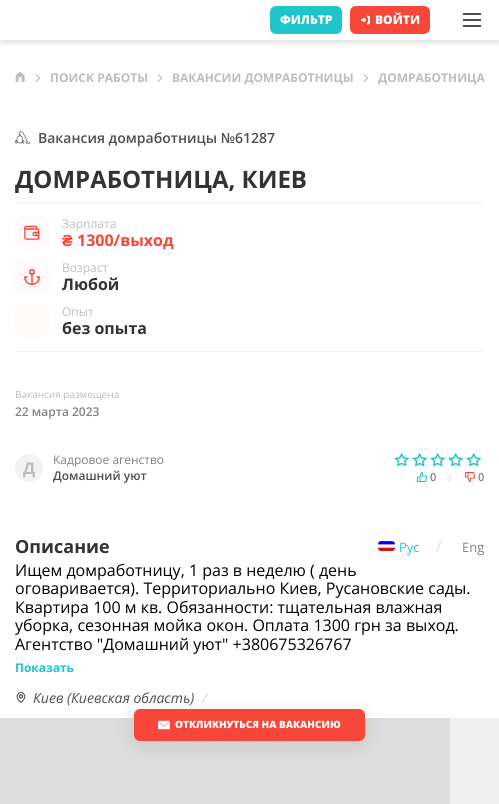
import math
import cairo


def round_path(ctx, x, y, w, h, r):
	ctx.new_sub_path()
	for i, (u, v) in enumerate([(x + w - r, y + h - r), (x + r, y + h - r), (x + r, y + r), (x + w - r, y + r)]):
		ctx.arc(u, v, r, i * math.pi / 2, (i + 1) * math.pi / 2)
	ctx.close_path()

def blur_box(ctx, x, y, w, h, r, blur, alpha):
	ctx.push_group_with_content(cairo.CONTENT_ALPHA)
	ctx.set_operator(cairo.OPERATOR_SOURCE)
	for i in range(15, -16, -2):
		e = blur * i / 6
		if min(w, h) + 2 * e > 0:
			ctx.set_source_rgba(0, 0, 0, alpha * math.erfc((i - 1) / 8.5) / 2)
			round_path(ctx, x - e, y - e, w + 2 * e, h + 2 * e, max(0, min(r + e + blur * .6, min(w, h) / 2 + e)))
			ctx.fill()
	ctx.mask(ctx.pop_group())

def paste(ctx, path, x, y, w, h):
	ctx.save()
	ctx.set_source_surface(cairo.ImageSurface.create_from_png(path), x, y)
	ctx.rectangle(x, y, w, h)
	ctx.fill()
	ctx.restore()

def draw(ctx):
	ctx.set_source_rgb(1, 1, 1)
	ctx.paint()
	ctx.save()
	ctx.rectangle(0, 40, 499, 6)
	ctx.clip()
	ctx.set_source_rgb(0, 0, 0)
	blur_box(ctx, 0, 4, 499, 40, 0, 2, 0.1)
	ctx.restore()
	ctx.set_source_rgb(0.122, 0.773, 0.792)
	round_path(ctx, 270, 6, 72, 28, 6)
	ctx.fill()
	ctx.select_font_face('Open Sans ExtraBold')
	ctx.set_font_size(12)
	ctx.set_source_rgb(1, 1, 1)
	ctx.move_to(280, 24)
	ctx.show_text('ФИЛЬТР')
	ctx.set_source_rgb(0.961, 0.278, 0.227)
	round_path(ctx, 350, 6, 80, 28, 6)
	ctx.fill()
	paste(ctx, 'media/1.png', 361, 15, 9, 10)
	ctx.set_source_rgb(1, 1, 1)
	ctx.move_to(375, 24)
	ctx.show_text('ВОЙТИ')
	paste(ctx, 'media/2.png', 463, 13, 18, 14)
	paste(ctx, 'media/3.png', 15, 71, 10, 11)
	paste(ctx, 'media/4.png', 35, 74, 6, 8)
	ctx.select_font_face('Open Sans', cairo.FONT_SLANT_NORMAL, cairo.FONT_WEIGHT_BOLD)
	ctx.set_source_rgb(0.741, 0.741, 0.741)
	ctx.move_to(50, 82)
	ctx.show_text('ПОИСК РАБОТЫ')
	paste(ctx, 'media/4.png', 157, 74, 6, 8)
	ctx.move_to(172, 82)
	ctx.show_text('ВАКАНСИИ ДОМРАБОТНИЦЫ')
	paste(ctx, 'media/4.png', 363, 74, 6, 8)
	ctx.move_to(378, 82)
	ctx.show_text('ДОМРАБОТНИЦА')
	paste(ctx, 'media/5.png', 15, 131, 15, 13)
	ctx.select_font_face('Open Sans SemiBold')
	ctx.set_font_size(14)
	ctx.set_source_rgb(0.31, 0.31, 0.31)
	ctx.move_to(38, 143)
	ctx.show_text('Вакансия домработницы №61287')
	ctx.select_font_face('Open Sans', cairo.FONT_SLANT_NORMAL, cairo.FONT_WEIGHT_BOLD)
	ctx.set_font_size(24)
	ctx.set_source_rgb(0.2, 0.2, 0.2)
	ctx.move_to(15, 188)
	ctx.show_text('ДОМРАБОТНИЦА, КИЕВ')
	ctx.set_source_rgb(0.949, 0.949, 0.949)
	ctx.rectangle(15, 202, 469, 1)
	ctx.fill()
	ctx.rectangle(15, 351, 469, 1)
	ctx.fill()
	ctx.set_source_rgb(1, 0.976, 0.976)
	round_path(ctx, 15, 216, 34, 34, 10)
	ctx.fill()
	paste(ctx, 'media/6.png', 24, 225, 16, 15)
	ctx.select_font_face('Open Sans')
	ctx.set_font_size(12)
	ctx.set_source_rgb(0.741, 0.741, 0.741)
	ctx.move_to(62, 228)
	ctx.show_text('Зарплата')
	ctx.select_font_face('Liberation Sans', cairo.FONT_SLANT_NORMAL, cairo.FONT_WEIGHT_BOLD)
	ctx.set_font_size(16)
	ctx.set_source_rgb(0.961, 0.278, 0.227)
	ctx.move_to(62, 246)
	ctx.show_text('₴')
	ctx.select_font_face('Open Sans', cairo.FONT_SLANT_NORMAL, cairo.FONT_WEIGHT_BOLD)
	ctx.move_to(77, 246)
	ctx.show_text('1300/выход')
	ctx.set_source_rgb(1, 0.976, 0.976)
	round_path(ctx, 15, 260, 34, 34, 10)
	ctx.fill()
	paste(ctx, 'media/7.png', 24, 269, 16, 16)
	ctx.select_font_face('Open Sans')
	ctx.set_font_size(12)
	ctx.set_source_rgb(0.741, 0.741, 0.741)
	ctx.move_to(62, 272)
	ctx.show_text('Возраст')
	ctx.select_font_face('Open Sans', cairo.FONT_SLANT_NORMAL, cairo.FONT_WEIGHT_BOLD)
	ctx.set_font_size(16)
	ctx.set_source_rgb(0.2, 0.2, 0.2)
	ctx.move_to(62, 290)
	ctx.show_text('Любой')
	ctx.set_source_rgb(1, 0.976, 0.976)
	round_path(ctx, 15, 304, 34, 34, 10)
	ctx.fill()
	ctx.select_font_face('Open Sans')
	ctx.set_font_size(12)
	ctx.set_source_rgb(0.741, 0.741, 0.741)
	ctx.move_to(62, 316)
	ctx.show_text('Опыт')
	ctx.select_font_face('Open Sans', cairo.FONT_SLANT_NORMAL, cairo.FONT_WEIGHT_BOLD)
	ctx.set_font_size(16)
	ctx.set_source_rgb(0.2, 0.2, 0.2)
	ctx.move_to(62, 334)
	ctx.show_text('без опыта')
	ctx.select_font_face('Open Sans')
	ctx.set_font_size(10)
	ctx.set_source_rgb(0.741, 0.741, 0.741)
	ctx.move_to(15, 398)
	ctx.show_text('Вакансия размещена')
	ctx.select_font_face('Open Sans SemiBold')
	ctx.set_font_size(12)
	ctx.set_source_rgb(0.51, 0.51, 0.51)
	ctx.move_to(15, 416)
	ctx.show_text('22 марта 2023')
	ctx.set_source_rgb(0.949, 0.949, 0.949)
	ctx.new_path()
	ctx.arc(29, 468, 14, 0, 2 * math.pi)
	ctx.fill()
	ctx.select_font_face('Open Sans', cairo.FONT_SLANT_NORMAL, cairo.FONT_WEIGHT_BOLD)
	ctx.set_font_size(16)
	ctx.set_source_rgb(0.741, 0.741, 0.741)
	ctx.move_to(23, 474)
	ctx.show_text('Д')
	ctx.select_font_face('Open Sans')
	ctx.set_font_size(12)
	ctx.set_source_rgb(0.51, 0.51, 0.51)
	ctx.move_to(53, 464)
	ctx.show_text('Кадровое агенство')
	ctx.select_font_face('Open Sans SemiBold')
	ctx.set_source_rgb(0.31, 0.31, 0.31)
	ctx.move_to(53, 480)
	ctx.show_text('Домашний уют')
	paste(ctx, 'media/8.png', 394, 452, 16, 15)
	paste(ctx, 'media/8.png', 412, 452, 16, 15)
	paste(ctx, 'media/8.png', 430, 452, 16, 15)
	paste(ctx, 'media/8.png', 448, 452, 16, 15)
	paste(ctx, 'media/8.png', 466, 452, 16, 15)
	paste(ctx, 'media/9.png', 417, 472, 10, 10)
	ctx.set_font_size(11)
	ctx.set_source_rgb(0.51, 0.51, 0.51)
	ctx.move_to(430, 481)
	ctx.show_text('0')
	ctx.set_source_rgb(0.878, 0.878, 0.878)
	ctx.move_to(448, 481)
	ctx.show_text('/')
	paste(ctx, 'media/10.png', 465, 472, 10, 10)
	ctx.set_source_rgb(0.51, 0.51, 0.51)
	ctx.move_to(478, 481)
	ctx.show_text('0')
	ctx.select_font_face('Open Sans', cairo.FONT_SLANT_NORMAL, cairo.FONT_WEIGHT_BOLD)
	ctx.set_font_size(18)
	ctx.set_source_rgb(0.2, 0.2, 0.2)
	ctx.move_to(15, 553)
	ctx.show_text('Описание')
	paste(ctx, 'media/11.png', 378, 541, 17, 10)
	ctx.select_font_face('Open Sans')
	ctx.set_font_size(13)
	ctx.set_source_rgb(0.122, 0.773, 0.792)
	ctx.move_to(399, 552)
	ctx.show_text('Рус')
	ctx.set_font_size(16)
	ctx.set_source_rgb(0.878, 0.878, 0.878)
	ctx.move_to(436, 552)
	ctx.show_text('/')
	ctx.set_font_size(13)
	ctx.set_source_rgb(0.51, 0.51, 0.51)
	ctx.move_to(462, 552)
	ctx.show_text('Eng')
	ctx.set_font_size(16)
	ctx.set_source_rgb(0, 0, 0)
	for x, y, s in [
		(15, 576, 'Ищем домработницу, 1 раз в неделю ( день'),
		(15, 594, 'оговаривается). Территориально Киев, Русановские сады.'),
		(15, 613, 'Квартира 100 м кв. Обязанности: тщательная влажная'),
		(15, 631, 'уборка, сезонная мойка окон. Оплата 1300 грн за выход.'),
		(15, 650, 'Агентство "Домашний уют" +380675326767'),
	]:
		ctx.move_to(x, y)
		ctx.show_text(s)
	ctx.select_font_face('Open Sans', cairo.FONT_SLANT_NORMAL, cairo.FONT_WEIGHT_BOLD)
	ctx.set_font_size(12)
	ctx.set_source_rgb(0.122, 0.773, 0.792)
	ctx.move_to(15, 672)
	ctx.show_text('Показать')
	paste(ctx, 'media/12.png', 16, 692, 10, 11)
	ctx.select_font_face('Open Sans', cairo.FONT_SLANT_ITALIC)
	ctx.set_font_size(14)
	ctx.set_source_rgb(0.31, 0.31, 0.31)
	ctx.move_to(33, 703)
	ctx.show_text('Киев (Киевская область)')
	ctx.set_source_rgb(0.878, 0.878, 0.878)
	ctx.new_path()
	ctx.move_to(207, 693)
	ctx.line_to(208, 693.5)
	ctx.line_to(202.5, 703)
	ctx.line_to(201.5, 702.5)
	ctx.close_path()
	ctx.fill()
	ctx.set_source_rgb(0.867, 0.867, 0.867)
	ctx.rectangle(0, 718, 450, 86)
	ctx.fill()
	ctx.set_source_rgb(0.937, 0.937, 0.937)
	ctx.rectangle(450, 718, 49, 86)
	ctx.fill()
	ctx.set_source_rgb(0, 0, 0)
	blur_box(ctx, 134, 713, 231, 32, 6, 10, 0.1)
	ctx.set_source_rgb(0.961, 0.278, 0.227)
	round_path(ctx, 134, 709, 231, 32, 6)
	ctx.fill()
	paste(ctx, 'media/13.png', 158, 720, 12, 10)
	ctx.select_font_face('Open Sans ExtraBold')
	ctx.set_font_size(10)
	ctx.set_source_rgb(1, 1, 1)
	ctx.move_to(175, 728)
	ctx.show_text('ОТКЛИКНУТЬСЯ НА ВАКАНСИЮ')


surface = cairo.ImageSurface(cairo.FORMAT_RGB24, 499, 804)
ctx = cairo.Context(surface)
options = cairo.FontOptions()
options.set_hint_metrics(cairo.HINT_METRICS_OFF)
options.set_hint_style(cairo.HINT_STYLE_NONE)
ctx.set_font_options(options)
ctx.set_miter_limit(4)
draw(ctx)
surface.write_to_png('image.png')
